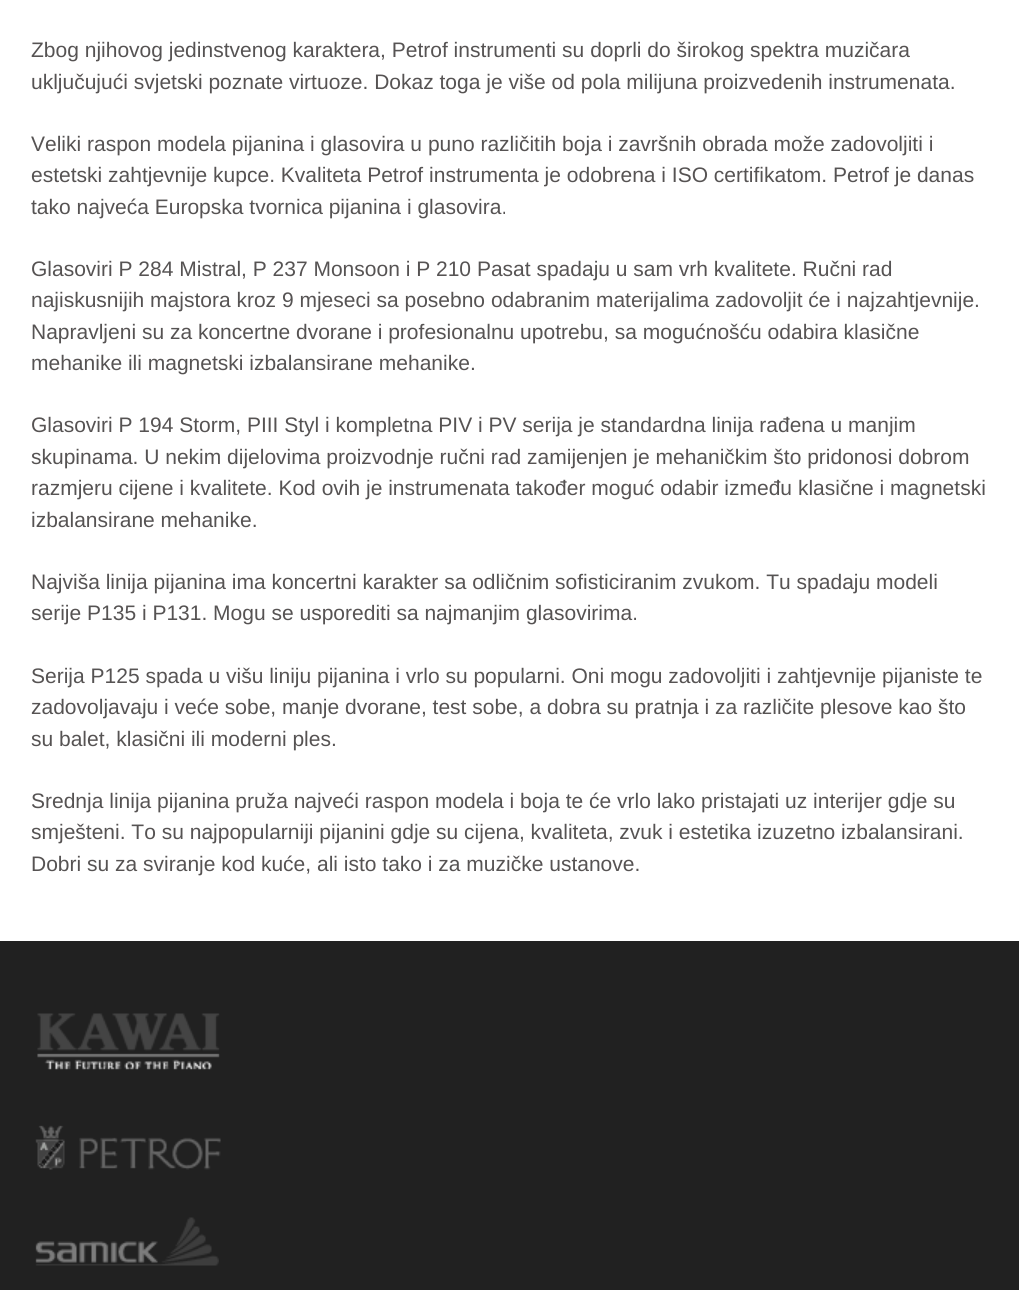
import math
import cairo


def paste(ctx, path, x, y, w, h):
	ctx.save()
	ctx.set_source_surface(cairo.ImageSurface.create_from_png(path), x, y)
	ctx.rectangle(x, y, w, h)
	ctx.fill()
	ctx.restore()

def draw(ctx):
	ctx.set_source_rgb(1, 1, 1)
	ctx.paint()
	ctx.select_font_face('Liberation Sans')
	ctx.set_font_size(21)
	ctx.set_source_rgb(0.337, 0.325, 0.325)
	for x, y, s in [
		(31, 57, 'Zbog njihovog jedinstvenog karaktera, Petrof instrumenti su doprli do širokog spektra muzičara'),
		(31, 89, 'uključujući svjetski poznate virtuoze. Dokaz toga je više od pola milijuna proizvedenih instrumenata.'),
		(31, 151, 'Veliki raspon modela pijanina i glasovira u puno različitih boja i završnih obrada može zadovoljiti i'),
		(31, 182, 'estetski zahtjevnije kupce. Kvaliteta Petrof instrumenta je odobrena i ISO certifikatom. Petrof je danas'),
		(31, 214, 'tako najveća Europska tvornica pijanina i glasovira.'),
		(31, 276, 'Glasoviri P 284 Mistral, P 237 Monsoon i P 210 Pasat spadaju u sam vrh kvalitete. Ručni rad'),
		(31, 307, 'najiskusnijih majstora kroz 9 mjeseci sa posebno odabranim materijalima zadovoljit će i najzahtjevnije.'),
		(31, 339, 'Napravljeni su za koncertne dvorane i profesionalnu upotrebu, sa mogućnošću odabira klasične'),
		(31, 370, 'mehanike ili magnetski izbalansirane mehanike.'),
		(31, 432, 'Glasoviri P 194 Storm, PIII Styl i kompletna PIV i PV serija je standardna linija rađena u manjim'),
		(31, 464, 'skupinama. U nekim dijelovima proizvodnje ručni rad zamijenjen je mehaničkim što pridonosi dobrom'),
		(31, 495, 'razmjeru cijene i kvalitete. Kod ovih je instrumenata također moguć odabir između klasične i magnetski'),
		(31, 527, 'izbalansirane mehanike.'),
		(31, 589, 'Najviša linija pijanina ima koncertni karakter sa odličnim sofisticiranim zvukom. Tu spadaju modeli'),
		(31, 620, 'serije P135 i P131. Mogu se usporediti sa najmanjim glasovirima.'),
		(31, 683, 'Serija P125 spada u višu liniju pijanina i vrlo su popularni. Oni mogu zadovoljiti i zahtjevnije pijaniste te'),
		(31, 714, 'zadovoljavaju i veće sobe, manje dvorane, test sobe, a dobra su pratnja i za različite plesove kao što'),
		(31, 746, 'su balet, klasični ili moderni ples.'),
		(31, 808, 'Srednja linija pijanina pruža najveći raspon modela i boja te će vrlo lako pristajati uz interijer gdje su'),
		(31, 839, 'smješteni. To su najpopularniji pijanini gdje su cijena, kvaliteta, zvuk i estetika izuzetno izbalansirani.'),
		(31, 871, 'Dobri su za sviranje kod kuće, ali isto tako i za muzičke ustanove.'),
	]:
		ctx.move_to(x, y)
		ctx.show_text(s)
	ctx.set_source_rgb(0.129, 0.129, 0.129)
	ctx.rectangle(0, 941, 1019, 349)
	ctx.fill()
	paste(ctx, 'media/1.png', 37, 1013, 183, 57)
	paste(ctx, 'media/2.png', 35, 1125, 186, 45)
	paste(ctx, 'media/3.png', 35, 1217, 184, 49)


surface = cairo.ImageSurface(cairo.FORMAT_RGB24, 1019, 1290)
ctx = cairo.Context(surface)
options = cairo.FontOptions()
options.set_hint_metrics(cairo.HINT_METRICS_OFF)
options.set_hint_style(cairo.HINT_STYLE_NONE)
ctx.set_font_options(options)
ctx.set_miter_limit(4)
draw(ctx)
surface.write_to_png('image.png')
